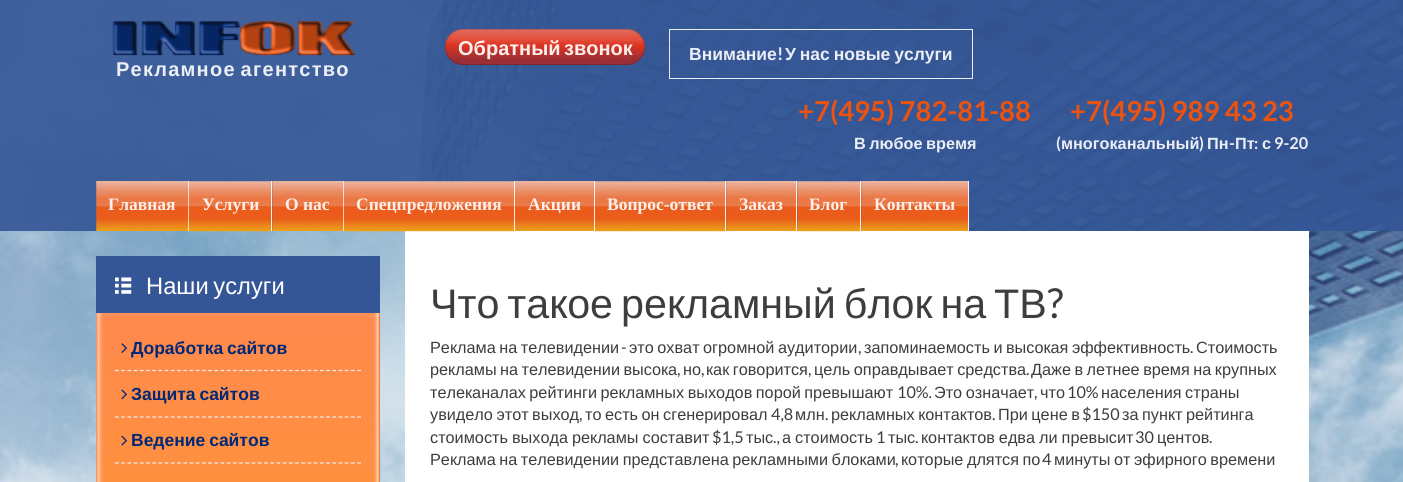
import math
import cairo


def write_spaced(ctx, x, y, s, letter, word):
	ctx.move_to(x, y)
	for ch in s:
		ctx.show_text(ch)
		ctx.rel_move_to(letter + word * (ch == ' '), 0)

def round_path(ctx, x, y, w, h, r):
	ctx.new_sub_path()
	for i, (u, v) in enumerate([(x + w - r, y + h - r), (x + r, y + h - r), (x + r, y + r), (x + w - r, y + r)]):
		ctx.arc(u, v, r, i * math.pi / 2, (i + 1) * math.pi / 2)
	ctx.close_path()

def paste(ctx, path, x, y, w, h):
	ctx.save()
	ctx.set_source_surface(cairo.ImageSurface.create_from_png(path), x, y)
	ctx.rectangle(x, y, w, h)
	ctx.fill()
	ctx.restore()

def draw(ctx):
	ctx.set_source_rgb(1, 1, 1)
	ctx.paint()
	paste(ctx, 'media/1.png', 0, 0, 1403, 482)
	ctx.set_source_rgba(0.204, 0.337, 0.588, 0.9)
	ctx.rectangle(0, 0, 1403, 231)
	ctx.fill()
	gradient = cairo.LinearGradient(545, 29, 545, 65)
	gradient.add_color_stop_rgba(0, 0.945, 0.435, 0.361, 0.9)
	gradient.add_color_stop_rgba(0.28, 0.973, 0.314, 0.196, 0.9)
	gradient.add_color_stop_rgba(0.46, 0.941, 0.184, 0.09, 0.9)
	gradient.add_color_stop_rgba(0.86, 0.647, 0.165, 0.165, 0.9)
	gradient.add_color_stop_rgba(1, 0.647, 0.165, 0.165, 0.9)
	ctx.set_source(gradient)
	round_path(ctx, 445, 29, 200, 36, 18)
	ctx.fill()
	round_path(ctx, 445.5, 29.5, 199, 35, 17.5)
	ctx.set_source_rgba(0, 0, 0, 0.18)
	ctx.set_line_width(1)
	ctx.stroke()
	ctx.select_font_face('Liberation Sans', cairo.FONT_SLANT_NORMAL, cairo.FONT_WEIGHT_BOLD)
	ctx.set_font_size(20)
	ctx.set_source_rgb(0.992, 0.941, 0.922)
	write_spaced(ctx, 458, 55, 'Обратный звонок', 0, -2)
	ctx.rectangle(669.5, 29.5, 303, 49)
	ctx.set_source_rgba(1, 1, 1, 0.9)
	ctx.stroke()
	ctx.set_font_size(17.5)
	ctx.set_source_rgb(0.922, 0.933, 0.961)
	ctx.move_to(689, 60)
	ctx.show_text('Внимание')
	ctx.select_font_face('Lato', cairo.FONT_SLANT_NORMAL, cairo.FONT_WEIGHT_BOLD)
	ctx.move_to(777, 60)
	ctx.show_text('!')
	ctx.select_font_face('Liberation Sans', cairo.FONT_SLANT_NORMAL, cairo.FONT_WEIGHT_BOLD)
	write_spaced(ctx, 785, 60, 'У нас новые услуги', 0, -1)
	paste(ctx, 'media/2.png', 112, 21, 245, 35)
	ctx.set_font_size(20)
	write_spaced(ctx, 116, 76, 'Рекламное агентство', 1.25, -2)
	ctx.select_font_face('Lato', cairo.FONT_SLANT_NORMAL, cairo.FONT_WEIGHT_BOLD)
	ctx.set_font_size(27.5)
	ctx.set_source_rgb(0.922, 0.325, 0.059)
	ctx.move_to(798, 121)
	ctx.show_text('+7(495) 782-81-88')
	ctx.select_font_face('Liberation Sans', cairo.FONT_SLANT_NORMAL, cairo.FONT_WEIGHT_BOLD)
	ctx.set_font_size(16.25)
	ctx.set_source_rgb(0.922, 0.933, 0.961)
	write_spaced(ctx, 854, 149, 'В любое время', 0, -1)
	ctx.select_font_face('Lato', cairo.FONT_SLANT_NORMAL, cairo.FONT_WEIGHT_BOLD)
	ctx.set_font_size(27.5)
	ctx.set_source_rgb(0.922, 0.325, 0.059)
	ctx.move_to(1070, 121)
	ctx.show_text('+7(495) 989 43 23')
	ctx.set_font_size(16.25)
	ctx.set_source_rgb(0.922, 0.933, 0.961)
	ctx.move_to(1056, 149)
	ctx.show_text('(')
	ctx.select_font_face('Liberation Sans', cairo.FONT_SLANT_NORMAL, cairo.FONT_WEIGHT_BOLD)
	ctx.move_to(1061, 149)
	ctx.show_text('многоканальный')
	ctx.select_font_face('Lato', cairo.FONT_SLANT_NORMAL, cairo.FONT_WEIGHT_BOLD)
	ctx.move_to(1199, 149)
	ctx.show_text(')')
	ctx.select_font_face('Liberation Sans', cairo.FONT_SLANT_NORMAL, cairo.FONT_WEIGHT_BOLD)
	ctx.move_to(1207, 149)
	ctx.show_text('Пн')
	ctx.select_font_face('Lato', cairo.FONT_SLANT_NORMAL, cairo.FONT_WEIGHT_BOLD)
	ctx.move_to(1229, 149)
	ctx.show_text('-')
	ctx.select_font_face('Liberation Sans', cairo.FONT_SLANT_NORMAL, cairo.FONT_WEIGHT_BOLD)
	ctx.move_to(1235, 149)
	ctx.show_text('Пт')
	ctx.select_font_face('Lato', cairo.FONT_SLANT_NORMAL, cairo.FONT_WEIGHT_BOLD)
	ctx.move_to(1254, 149)
	ctx.show_text(':')
	ctx.select_font_face('Liberation Sans', cairo.FONT_SLANT_NORMAL, cairo.FONT_WEIGHT_BOLD)
	ctx.move_to(1262, 149)
	ctx.show_text('с')
	ctx.select_font_face('Lato', cairo.FONT_SLANT_NORMAL, cairo.FONT_WEIGHT_BOLD)
	ctx.move_to(1274, 149)
	ctx.show_text('9-20')
	paste(ctx, 'media/3.png', 96, 181, 93, 50)
	ctx.set_source_rgba(1, 1, 1, 0.9)
	ctx.rectangle(188, 181, 1, 50)
	ctx.fill()
	ctx.select_font_face('Liberation Serif', cairo.FONT_SLANT_NORMAL, cairo.FONT_WEIGHT_BOLD)
	ctx.set_font_size(17.5)
	ctx.set_source_rgb(0.992, 0.941, 0.922)
	ctx.move_to(108, 210)
	ctx.show_text('Главная')
	paste(ctx, 'media/4.png', 188, 181, 85, 51)
	ctx.set_source_rgba(1, 1, 1, 0.9)
	ctx.rectangle(271, 181, 1, 50)
	ctx.fill()
	ctx.set_source_rgb(0.992, 0.941, 0.922)
	ctx.move_to(202, 210)
	ctx.show_text('Услуги')
	paste(ctx, 'media/5.png', 272, 181, 72, 50)
	ctx.set_source_rgba(1, 1, 1, 0.9)
	ctx.rectangle(343, 181, 1, 50)
	ctx.fill()
	ctx.set_source_rgb(0.992, 0.941, 0.922)
	ctx.move_to(285, 210)
	ctx.show_text('О нас')
	ctx.set_source_rgb(1, 1, 1)
	ctx.rectangle(405, 231, 904, 251)
	ctx.fill()
	paste(ctx, 'media/6.png', 343, 181, 172, 51)
	ctx.set_source_rgba(1, 1, 1, 0.9)
	ctx.rectangle(514, 181, 1, 50)
	ctx.fill()
	ctx.set_source_rgb(0.992, 0.941, 0.922)
	ctx.move_to(356, 210)
	ctx.show_text('Спецпредложения')
	paste(ctx, 'media/7.png', 515, 181, 80, 50)
	ctx.set_source_rgba(1, 1, 1, 0.9)
	ctx.rectangle(594, 181, 1, 50)
	ctx.fill()
	ctx.set_source_rgb(0.992, 0.941, 0.922)
	ctx.move_to(528, 210)
	ctx.show_text('Акции')
	paste(ctx, 'media/8.png', 595, 181, 132, 51)
	ctx.set_source_rgba(1, 1, 1, 0.9)
	ctx.rectangle(725, 181, 1, 50)
	ctx.fill()
	ctx.set_source_rgb(0.992, 0.941, 0.922)
	ctx.move_to(607, 210)
	ctx.show_text('Вопрос-ответ')
	paste(ctx, 'media/9.png', 726, 181, 72, 50)
	ctx.set_source_rgba(1, 1, 1, 0.9)
	ctx.rectangle(796, 181, 1, 50)
	ctx.fill()
	ctx.set_source_rgb(0.992, 0.941, 0.922)
	ctx.move_to(739, 210)
	ctx.show_text('Заказ')
	paste(ctx, 'media/10.png', 797, 181, 65, 51)
	ctx.set_source_rgba(1, 1, 1, 0.9)
	ctx.rectangle(860, 181, 1, 50)
	ctx.fill()
	ctx.set_source_rgb(0.992, 0.941, 0.922)
	ctx.move_to(809, 210)
	ctx.show_text('Блог')
	paste(ctx, 'media/11.png', 861, 181, 108, 50)
	ctx.set_source_rgba(1, 1, 1, 0.9)
	ctx.rectangle(968, 181, 1, 50)
	ctx.fill()
	ctx.set_source_rgb(0.992, 0.941, 0.922)
	ctx.move_to(874, 210)
	ctx.show_text('Контакты')
	ctx.set_source_rgb(1, 1, 1)
	ctx.rectangle(96, 313, 284, 169)
	ctx.fill()
	ctx.set_source_rgb(0.204, 0.337, 0.588)
	ctx.rectangle(96, 256, 284, 57)
	ctx.fill()
	paste(ctx, 'media/12.png', 115, 277, 17, 17)
	ctx.select_font_face('Liberation Sans')
	ctx.set_font_size(23.75)
	ctx.set_source_rgb(1, 1, 1)
	write_spaced(ctx, 146, 294, 'Наши услуги', 0, -2)
	paste(ctx, 'media/13.png', 96, 313, 284, 169)
	paste(ctx, 'media/14.png', 121, 343, 6, 10)
	ctx.select_font_face('Liberation Sans', cairo.FONT_SLANT_NORMAL, cairo.FONT_WEIGHT_BOLD)
	ctx.set_font_size(17.5)
	ctx.set_source_rgb(0.004, 0.157, 0.467)
	write_spaced(ctx, 131, 354, 'Доработка сайтов', 0, -1)
	ctx.new_path()
	ctx.move_to(115, 370.5)
	ctx.line_to(361, 370.5)
	ctx.set_source_rgb(0.933, 0.933, 0.933)
	ctx.set_line_width(1.2)
	ctx.set_dash([3.75, 2.46])
	ctx.stroke()
	paste(ctx, 'media/15.png', 121, 389, 6, 11)
	ctx.set_source_rgb(0.004, 0.157, 0.467)
	write_spaced(ctx, 131, 400, 'Защита сайтов', 0, -1)
	ctx.new_path()
	ctx.move_to(115, 417)
	ctx.line_to(361, 417)
	ctx.set_source_rgb(0.933, 0.933, 0.933)
	ctx.stroke()
	paste(ctx, 'media/16.png', 121, 435, 6, 11)
	ctx.set_source_rgb(0.004, 0.157, 0.467)
	write_spaced(ctx, 131, 446, 'Ведение сайтов', 0, -1)
	ctx.new_path()
	ctx.move_to(115, 463)
	ctx.line_to(361, 463)
	ctx.set_source_rgb(0.933, 0.933, 0.933)
	ctx.stroke()
	ctx.select_font_face('Liberation Sans')
	ctx.set_font_size(41.25)
	ctx.set_source_rgb(0.239, 0.239, 0.239)
	write_spaced(ctx, 430, 318, 'Что такое рекламный блок на ТВ', 0, -3.5)
	ctx.select_font_face('Lato')
	ctx.move_to(1047, 318)
	ctx.show_text('?')
	ctx.select_font_face('Liberation Sans')
	ctx.set_font_size(16.25)
	write_spaced(ctx, 430, 353, 'Реклама на телевидении', 0, -1)
	ctx.select_font_face('Lato')
	ctx.move_to(621, 353)
	ctx.show_text('-')
	ctx.select_font_face('Liberation Sans')
	write_spaced(ctx, 629, 353, 'это охват огромной аудитории', 0, -1)
	write_spaced(ctx, 864, 353, 'запоминаемость и высокая эффективность', 0, -1)
	ctx.move_to(1196, 353)
	ctx.show_text('Стоимость')
	ctx.select_font_face('Lato')
	ctx.move_to(858, 353)
	ctx.show_text(',')
	ctx.move_to(1190, 353)
	ctx.show_text('.')
	ctx.select_font_face('Liberation Sans')
	write_spaced(ctx, 430, 375, 'рекламы на телевидении высока', 0, -1)
	ctx.select_font_face('Lato')
	ctx.move_to(677, 375)
	ctx.show_text(',')
	ctx.select_font_face('Liberation Sans')
	ctx.move_to(683, 375)
	ctx.show_text('но')
	ctx.select_font_face('Lato')
	ctx.move_to(701, 375)
	ctx.show_text(',')
	ctx.select_font_face('Liberation Sans')
	write_spaced(ctx, 706, 375, 'как говорится', 0, -1)
	ctx.select_font_face('Lato')
	ctx.move_to(808, 375)
	ctx.show_text(',')
	ctx.select_font_face('Liberation Sans')
	write_spaced(ctx, 814, 375, 'цель оправдывает средства', 0, -1)
	ctx.select_font_face('Lato')
	ctx.move_to(1026, 375)
	ctx.show_text('.')
	ctx.select_font_face('Liberation Sans')
	write_spaced(ctx, 1031, 375, 'Даже в летнее время на крупных', 0, -1)
	write_spaced(ctx, 430, 398, 'телеканалах рейтинги рекламных выходов порой превышают', 0, -1)
	ctx.select_font_face('Lato')
	ctx.move_to(897, 398)
	ctx.show_text('10%.')
	ctx.select_font_face('Liberation Sans')
	write_spaced(ctx, 934, 398, 'Это означает', 0, -1)
	ctx.select_font_face('Lato')
	ctx.move_to(1034, 398)
	ctx.show_text(',')
	ctx.select_font_face('Liberation Sans')
	ctx.move_to(1040, 398)
	ctx.show_text('что')
	ctx.select_font_face('Lato')
	ctx.move_to(1067, 398)
	ctx.show_text('10%')
	ctx.select_font_face('Liberation Sans')
	write_spaced(ctx, 1101, 398, 'населения страны', 0, -1)
	write_spaced(ctx, 430, 420, 'увидело этот выход', 0, -1)
	ctx.select_font_face('Lato')
	ctx.move_to(579, 420)
	ctx.show_text(',')
	ctx.select_font_face('Liberation Sans')
	write_spaced(ctx, 585, 420, 'то есть он сгенерировал', 0, -1)
	ctx.select_font_face('Lato')
	ctx.move_to(771, 420)
	ctx.show_text('4,8')
	ctx.select_font_face('Liberation Sans')
	ctx.move_to(795, 420)
	ctx.show_text('млн')
	ctx.select_font_face('Lato')
	ctx.move_to(825, 420)
	ctx.show_text('.')
	ctx.select_font_face('Liberation Sans')
	write_spaced(ctx, 831, 420, 'рекламных контактов', 0, -1)
	ctx.select_font_face('Lato')
	ctx.move_to(992, 420)
	ctx.show_text('.')
	ctx.select_font_face('Liberation Sans')
	write_spaced(ctx, 998, 420, 'При цене в', 0, -1)
	ctx.select_font_face('Lato')
	ctx.move_to(1082, 420)
	ctx.show_text('$150')
	ctx.select_font_face('Liberation Sans')
	write_spaced(ctx, 1122, 420, 'за пункт рейтинга', 0, -1)
	write_spaced(ctx, 430, 443, 'стоимость выхода рекламы составит', 0, -0.5)
	ctx.select_font_face('Lato')
	ctx.move_to(712, 443)
	ctx.show_text('$1,5')
	ctx.select_font_face('Liberation Sans')
	ctx.move_to(746, 443)
	ctx.show_text('тыс')
	ctx.select_font_face('Lato')
	ctx.move_to(773, 443)
	ctx.show_text('.,')
	ctx.select_font_face('Liberation Sans')
	write_spaced(ctx, 782, 443, 'а стоимость', 0, -0.5)
	ctx.select_font_face('Lato')
	ctx.move_to(876, 443)
	ctx.show_text('1')
	ctx.select_font_face('Liberation Sans')
	ctx.move_to(888, 443)
	ctx.show_text('тыс')
	ctx.select_font_face('Lato')
	ctx.move_to(915, 443)
	ctx.show_text('.')
	ctx.select_font_face('Liberation Sans')
	write_spaced(ctx, 921, 443, 'контактов едва ли превысит', 0, -0.5)
	ctx.select_font_face('Lato')
	ctx.move_to(1135, 443)
	ctx.show_text('30')
	ctx.select_font_face('Liberation Sans')
	ctx.move_to(1157, 443)
	ctx.show_text('центов')
	ctx.select_font_face('Lato')
	ctx.move_to(1209, 443)
	ctx.show_text('.')
	ctx.select_font_face('Liberation Sans')
	write_spaced(ctx, 430, 465, 'Реклама на телевидении представлена рекламными блоками', 0, -1)
	ctx.select_font_face('Lato')
	ctx.move_to(895, 465)
	ctx.show_text(',')
	ctx.select_font_face('Liberation Sans')
	write_spaced(ctx, 901, 465, 'которые длятся по', 0, -1)
	ctx.select_font_face('Lato')
	ctx.move_to(1042, 465)
	ctx.show_text('4')
	ctx.select_font_face('Liberation Sans')
	write_spaced(ctx, 1054, 465, 'минуты от эфирного времени', 0, -1)


surface = cairo.ImageSurface(cairo.FORMAT_RGB24, 1403, 482)
ctx = cairo.Context(surface)
options = cairo.FontOptions()
options.set_hint_metrics(cairo.HINT_METRICS_OFF)
options.set_hint_style(cairo.HINT_STYLE_NONE)
ctx.set_font_options(options)
ctx.set_miter_limit(4)
draw(ctx)
surface.write_to_png('image.png')
